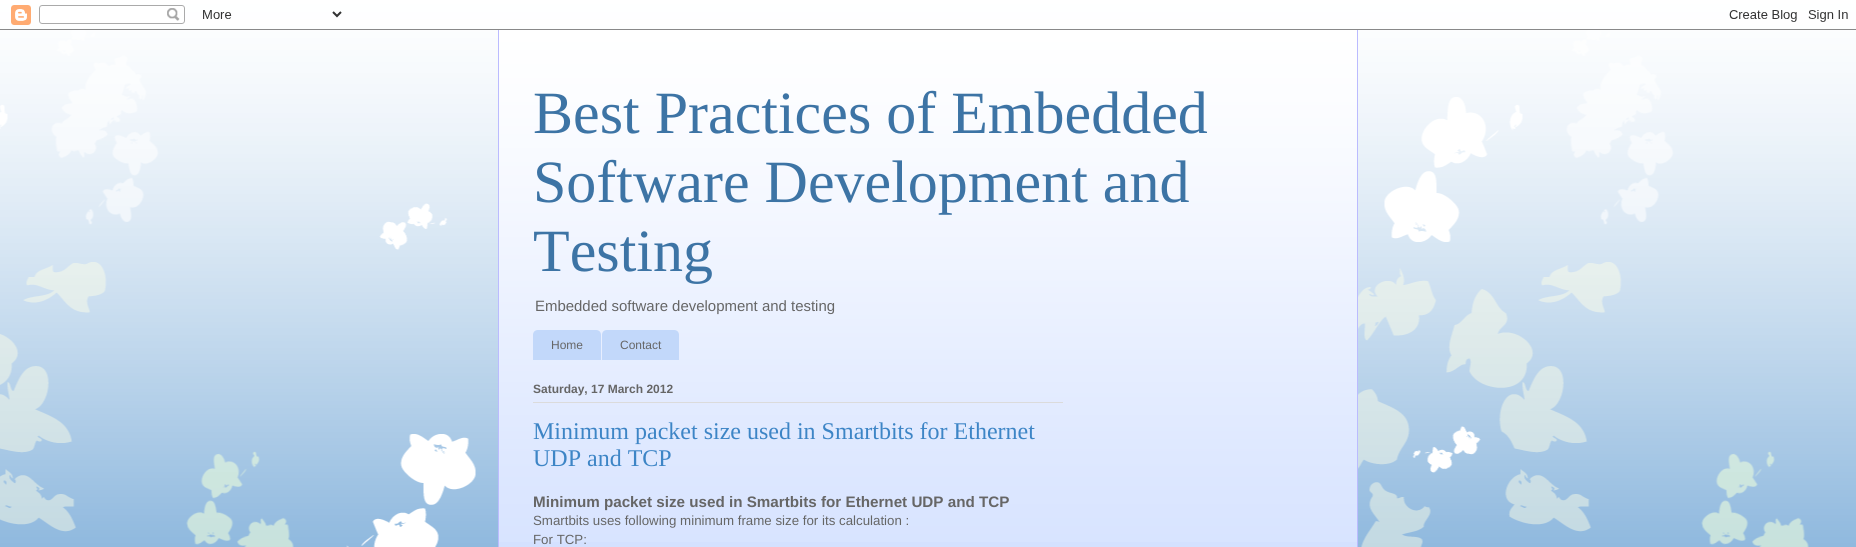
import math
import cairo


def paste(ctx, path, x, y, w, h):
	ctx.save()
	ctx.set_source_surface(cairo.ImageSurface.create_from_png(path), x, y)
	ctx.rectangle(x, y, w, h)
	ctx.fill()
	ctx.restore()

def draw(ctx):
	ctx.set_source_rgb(0.239, 0.522, 0.776)
	ctx.paint()
	paste(ctx, 'media/1.png', 0, 0, 1856, 547)
	paste(ctx, 'media/2.png', 0, 5, 1856, 25)
	ctx.set_source_rgb(0.831, 0.882, 1)
	ctx.rectangle(499, 37, 858, 510)
	ctx.fill()
	paste(ctx, 'media/3.png', 499, 30, 858, 512)
	ctx.set_source_rgb(0.733, 0.733, 1)
	ctx.rectangle(1357, 30, 1, 517)
	ctx.fill()
	ctx.rectangle(498, 30, 1, 517)
	ctx.fill()
	ctx.select_font_face('Liberation Serif')
	ctx.set_font_size(60)
	ctx.set_source_rgb(0.239, 0.455, 0.647)
	for x, y, s in [
		(533, 133, 'Best Practices of Embedded'),
		(533, 202, 'Software Development and'),
		(533, 271, 'Testing'),
	]:
		ctx.move_to(x, y)
		ctx.show_text(s)
	ctx.select_font_face('Liberation Sans')
	ctx.set_font_size(14.95)
	ctx.set_source_rgb(0.4, 0.4, 0.4)
	ctx.move_to(535, 311)
	ctx.show_text('Embedded software development and testing')
	ctx.set_source_rgb(0.761, 0.847, 0.98)
	ctx.new_path()
	ctx.move_to(538, 330)
	ctx.line_to(596, 330)
	ctx.curve_to(599, 330, 601, 332, 601, 335)
	ctx.line_to(601, 360)
	ctx.line_to(533, 360)
	ctx.line_to(533, 335)
	ctx.curve_to(533, 332, 535, 330, 538, 330)
	ctx.close_path()
	ctx.fill()
	ctx.set_font_size(12)
	ctx.set_source_rgb(0.4, 0.4, 0.4)
	ctx.move_to(551, 349)
	ctx.show_text('Home')
	ctx.set_source_rgb(0.761, 0.847, 0.98)
	ctx.new_path()
	ctx.move_to(607, 330)
	ctx.line_to(674, 330)
	ctx.curve_to(677, 330, 679, 332, 679, 335)
	ctx.line_to(679, 360)
	ctx.line_to(602, 360)
	ctx.line_to(602, 335)
	ctx.curve_to(602, 332, 604, 330, 607, 330)
	ctx.close_path()
	ctx.fill()
	ctx.set_source_rgb(0.4, 0.4, 0.4)
	ctx.move_to(620, 349)
	ctx.show_text('Contact')
	ctx.set_source_rgb(0.859, 0.859, 0.859)
	ctx.rectangle(533, 402, 530, 1)
	ctx.fill()
	ctx.select_font_face('Liberation Sans', cairo.FONT_SLANT_NORMAL, cairo.FONT_WEIGHT_BOLD)
	ctx.set_source_rgb(0.4, 0.4, 0.4)
	ctx.move_to(533, 393)
	ctx.show_text('Saturday, 17 March 2012')
	ctx.select_font_face('Liberation Serif')
	ctx.set_font_size(24)
	ctx.set_source_rgb(0.239, 0.522, 0.776)
	ctx.move_to(533, 439)
	ctx.show_text('Minimum packet size used in Smartbits for Ethernet')
	ctx.move_to(533, 466)
	ctx.show_text('UDP and TCP')
	ctx.select_font_face('Liberation Sans', cairo.FONT_SLANT_NORMAL, cairo.FONT_WEIGHT_BOLD)
	ctx.set_font_size(15.2)
	ctx.set_source_rgb(0.4, 0.4, 0.4)
	ctx.move_to(533, 507)
	ctx.show_text('Minimum packet size used in Smartbits for Ethernet UDP and TCP')
	ctx.select_font_face('Liberation Sans')
	ctx.set_font_size(13.3)
	ctx.move_to(533, 525)
	ctx.show_text('Smartbits uses following minimum frame size for its calculation :')
	ctx.move_to(533, 544)
	ctx.show_text('For TCP:')


surface = cairo.ImageSurface(cairo.FORMAT_RGB24, 1856, 547)
ctx = cairo.Context(surface)
options = cairo.FontOptions()
options.set_hint_metrics(cairo.HINT_METRICS_OFF)
options.set_hint_style(cairo.HINT_STYLE_NONE)
ctx.set_font_options(options)
ctx.set_miter_limit(4)
draw(ctx)
surface.write_to_png('image.png')
